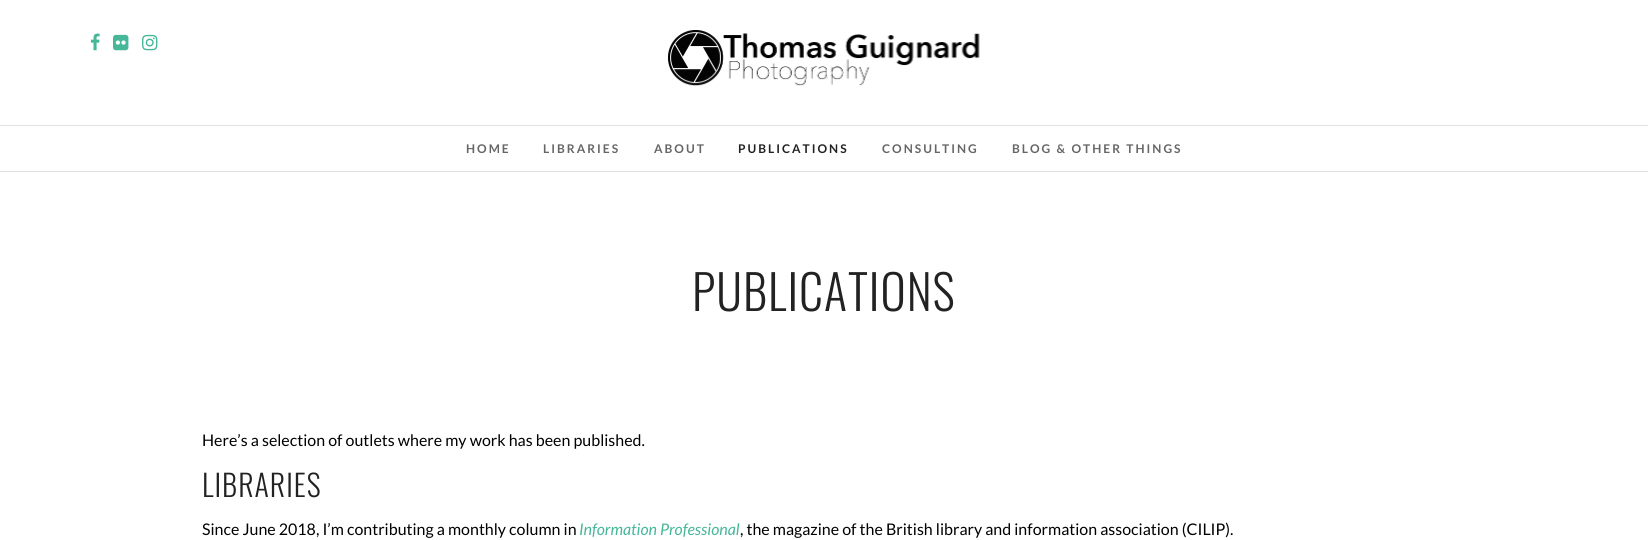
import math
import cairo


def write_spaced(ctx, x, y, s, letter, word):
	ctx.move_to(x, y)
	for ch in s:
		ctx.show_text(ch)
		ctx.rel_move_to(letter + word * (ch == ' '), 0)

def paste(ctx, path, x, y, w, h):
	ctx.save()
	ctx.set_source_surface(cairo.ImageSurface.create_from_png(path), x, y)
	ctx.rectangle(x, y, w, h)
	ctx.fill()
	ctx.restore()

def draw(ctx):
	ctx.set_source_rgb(1, 1, 1)
	ctx.paint()
	ctx.set_source_rgb(0.882, 0.882, 0.882)
	ctx.rectangle(0, 171, 1648, 1)
	ctx.fill()
	ctx.rectangle(0, 125, 1648, 1)
	ctx.fill()
	paste(ctx, 'media/1.png', 90, 33, 10, 18)
	paste(ctx, 'media/2.png', 113, 34, 16, 17)
	paste(ctx, 'media/3.png', 142, 34, 16, 17)
	paste(ctx, 'media/4.png', 668, 30, 312, 56)
	ctx.select_font_face('Lato', cairo.FONT_SLANT_NORMAL, cairo.FONT_WEIGHT_BOLD)
	ctx.set_font_size(12)
	ctx.set_source_rgb(0.4, 0.4, 0.4)
	for x, y, s in [
		(466, 153, 'HOME'),
		(543, 153, 'LIBRARIES'),
		(654, 153, 'ABOUT'),
	]:
		write_spaced(ctx, x, y, s, 2, 0)
	ctx.set_source_rgb(0.133, 0.133, 0.133)
	write_spaced(ctx, 738, 153, 'PUBLICATIONS', 2, 0)
	ctx.set_source_rgb(0.4, 0.4, 0.4)
	write_spaced(ctx, 882, 153, 'CONSULTING', 2, 0)
	write_spaced(ctx, 1012, 153, 'BLOG & OTHER THINGS', 2, 0)
	ctx.select_font_face('Oswald Light')
	ctx.set_font_size(48)
	ctx.set_source_rgb(0.133, 0.133, 0.133)
	write_spaced(ctx, 692, 311, 'PUBLICATIONS', 1, 0)
	ctx.select_font_face('Lato')
	ctx.set_font_size(16)
	ctx.set_source_rgb(0, 0, 0)
	ctx.move_to(202, 446)
	ctx.show_text('Here’s a selection of outlets where my work has been published.')
	ctx.select_font_face('Oswald Light')
	ctx.set_font_size(30)
	ctx.set_source_rgb(0.133, 0.133, 0.133)
	write_spaced(ctx, 202, 497, 'LIBRARIES', 1, 0)
	ctx.select_font_face('Lato')
	ctx.set_font_size(16)
	ctx.set_source_rgb(0, 0, 0)
	ctx.move_to(202, 535)
	ctx.show_text('Since June 2018, I’m contributing a monthly column in')
	ctx.select_font_face('Lato', cairo.FONT_SLANT_ITALIC)
	ctx.set_source_rgb(0.275, 0.718, 0.596)
	ctx.move_to(579, 535)
	ctx.show_text('Information Professional')
	ctx.select_font_face('Lato')
	ctx.set_source_rgb(0, 0, 0)
	ctx.move_to(740, 535)
	ctx.show_text(', the magazine of the British library and information association (CILIP).')


surface = cairo.ImageSurface(cairo.FORMAT_RGB24, 1648, 540)
ctx = cairo.Context(surface)
options = cairo.FontOptions()
options.set_hint_metrics(cairo.HINT_METRICS_OFF)
options.set_hint_style(cairo.HINT_STYLE_NONE)
ctx.set_font_options(options)
ctx.set_miter_limit(4)
draw(ctx)
surface.write_to_png('image.png')
